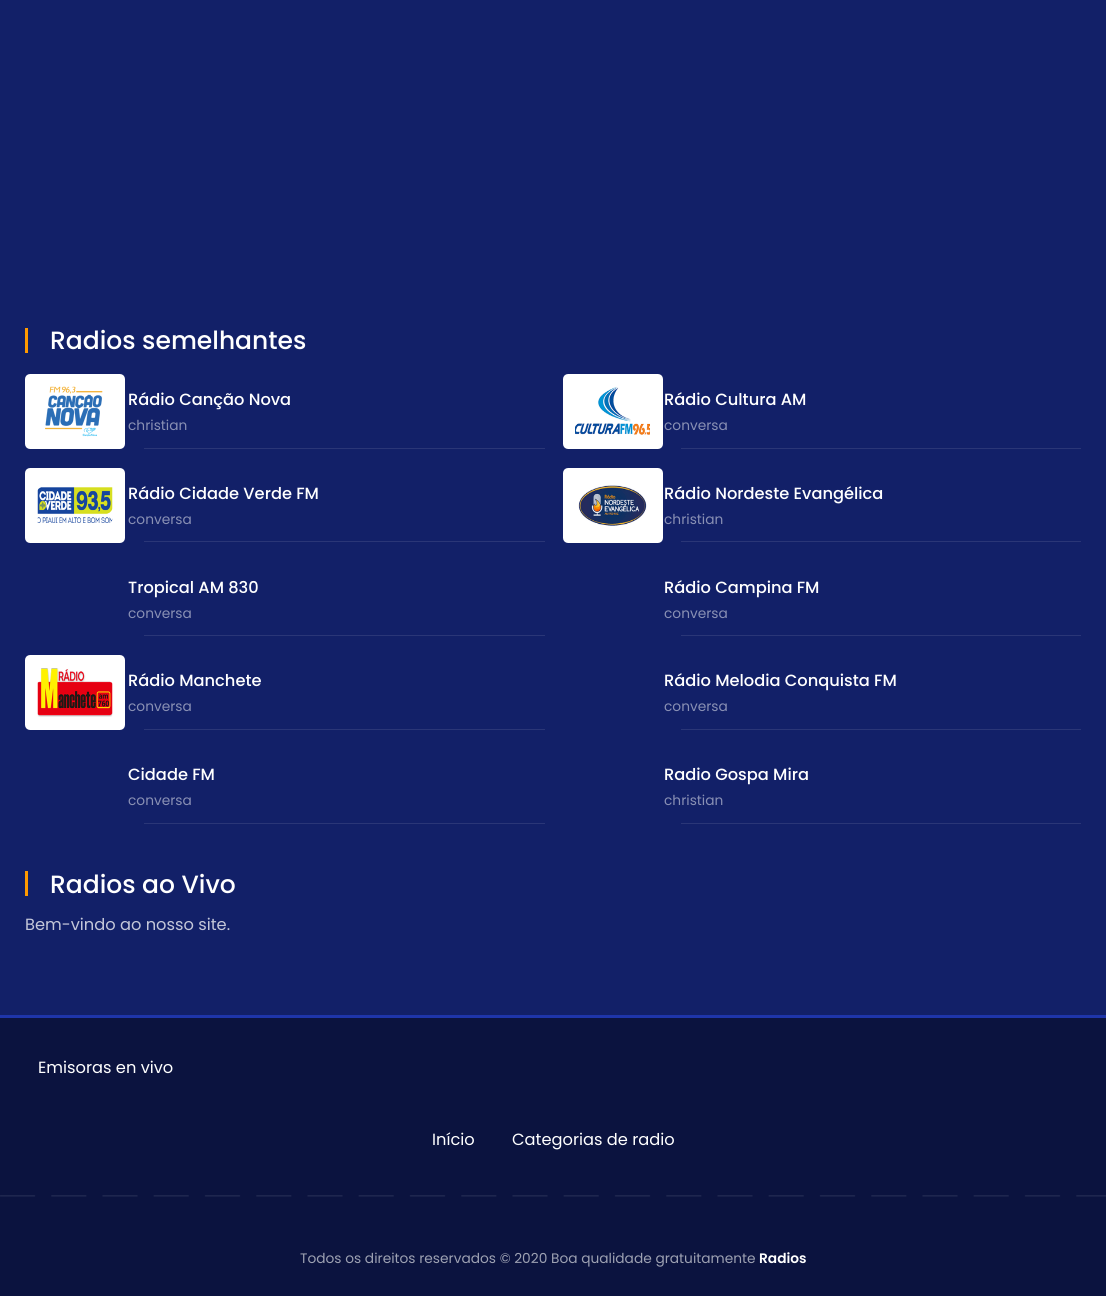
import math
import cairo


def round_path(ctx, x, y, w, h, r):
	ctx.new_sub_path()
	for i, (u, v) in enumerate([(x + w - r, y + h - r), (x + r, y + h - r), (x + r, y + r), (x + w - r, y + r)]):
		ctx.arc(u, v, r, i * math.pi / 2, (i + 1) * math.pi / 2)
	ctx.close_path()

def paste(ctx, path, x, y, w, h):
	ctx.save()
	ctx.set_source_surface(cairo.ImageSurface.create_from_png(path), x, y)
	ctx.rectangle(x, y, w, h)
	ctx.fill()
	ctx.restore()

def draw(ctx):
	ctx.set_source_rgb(0.071, 0.125, 0.408)
	ctx.paint()
	ctx.set_source_rgb(1, 0.6, 0)
	ctx.rectangle(25, 328, 3, 25)
	ctx.fill()
	ctx.select_font_face('Poppins Medium')
	ctx.set_font_size(25)
	ctx.set_source_rgb(1, 1, 1)
	ctx.move_to(50, 349)
	ctx.show_text('Radios semelhantes')
	round_path(ctx, 26.5, 375.5, 97, 72, 3.5)
	ctx.fill_preserve()
	ctx.set_line_width(3)
	ctx.stroke()
	paste(ctx, 'media/1.png', 45, 386, 58, 51)
	ctx.set_font_size(16.25)
	ctx.move_to(128, 405)
	ctx.show_text('Rádio Canção Nova')
	ctx.select_font_face('Poppins')
	ctx.set_font_size(13.75)
	ctx.set_source_rgb(0.537, 0.565, 0.706)
	ctx.move_to(128, 430)
	ctx.show_text('christian')
	ctx.set_source_rgb(0.165, 0.212, 0.467)
	ctx.rectangle(144, 448, 401, 1)
	ctx.fill()
	ctx.set_source_rgb(1, 1, 1)
	round_path(ctx, 564.5, 375.5, 97, 72, 3.5)
	ctx.fill_preserve()
	ctx.stroke()
	paste(ctx, 'media/2.png', 575, 386, 75, 49)
	ctx.select_font_face('Poppins Medium')
	ctx.set_font_size(16.25)
	ctx.move_to(664, 405)
	ctx.show_text('Rádio Cultura AM')
	ctx.select_font_face('Poppins')
	ctx.set_font_size(13.75)
	ctx.set_source_rgb(0.537, 0.565, 0.706)
	ctx.move_to(664, 430)
	ctx.show_text('conversa')
	ctx.set_source_rgb(0.165, 0.212, 0.467)
	ctx.rectangle(681, 448, 400, 1)
	ctx.fill()
	ctx.set_source_rgb(1, 1, 1)
	round_path(ctx, 26.5, 469.5, 97, 72, 3.5)
	ctx.fill_preserve()
	ctx.stroke()
	paste(ctx, 'media/3.png', 37, 487, 76, 36)
	ctx.select_font_face('Poppins Medium')
	ctx.set_font_size(16.25)
	ctx.move_to(128, 499)
	ctx.show_text('Rádio Cidade Verde FM')
	ctx.select_font_face('Poppins')
	ctx.set_font_size(13.75)
	ctx.set_source_rgb(0.537, 0.565, 0.706)
	ctx.move_to(128, 524)
	ctx.show_text('conversa')
	ctx.set_source_rgb(0.165, 0.212, 0.467)
	ctx.rectangle(144, 541, 401, 1)
	ctx.fill()
	ctx.set_source_rgb(1, 1, 1)
	round_path(ctx, 564.5, 469.5, 97, 72, 3.5)
	ctx.fill_preserve()
	ctx.stroke()
	paste(ctx, 'media/4.png', 578, 485, 69, 41)
	ctx.select_font_face('Poppins Medium')
	ctx.set_font_size(16.25)
	ctx.move_to(664, 499)
	ctx.show_text('Rádio Nordeste Evangélica')
	ctx.select_font_face('Poppins')
	ctx.set_font_size(13.75)
	ctx.set_source_rgb(0.537, 0.565, 0.706)
	ctx.move_to(664, 524)
	ctx.show_text('christian')
	ctx.set_source_rgb(0.165, 0.212, 0.467)
	ctx.rectangle(681, 541, 400, 1)
	ctx.fill()
	ctx.select_font_face('Poppins Medium')
	ctx.set_font_size(16.25)
	ctx.set_source_rgb(1, 1, 1)
	ctx.move_to(128, 593)
	ctx.show_text('Tropical AM 830')
	ctx.select_font_face('Poppins')
	ctx.set_font_size(13.75)
	ctx.set_source_rgb(0.537, 0.565, 0.706)
	ctx.move_to(128, 618)
	ctx.show_text('conversa')
	ctx.set_source_rgb(0.165, 0.212, 0.467)
	ctx.rectangle(144, 635, 401, 1)
	ctx.fill()
	ctx.select_font_face('Poppins Medium')
	ctx.set_font_size(16.25)
	ctx.set_source_rgb(1, 1, 1)
	ctx.move_to(664, 593)
	ctx.show_text('Rádio Campina FM')
	ctx.select_font_face('Poppins')
	ctx.set_font_size(13.75)
	ctx.set_source_rgb(0.537, 0.565, 0.706)
	ctx.move_to(664, 618)
	ctx.show_text('conversa')
	ctx.set_source_rgb(0.165, 0.212, 0.467)
	ctx.rectangle(681, 635, 400, 1)
	ctx.fill()
	ctx.set_source_rgb(1, 1, 1)
	round_path(ctx, 26.5, 656.5, 97, 72, 3.5)
	ctx.fill_preserve()
	ctx.stroke()
	paste(ctx, 'media/5.png', 37, 668, 76, 49)
	ctx.select_font_face('Poppins Medium')
	ctx.set_font_size(16.25)
	ctx.move_to(128, 686)
	ctx.show_text('Rádio Manchete')
	ctx.select_font_face('Poppins')
	ctx.set_font_size(13.75)
	ctx.set_source_rgb(0.537, 0.565, 0.706)
	ctx.move_to(128, 711)
	ctx.show_text('conversa')
	ctx.set_source_rgb(0.165, 0.212, 0.467)
	ctx.rectangle(144, 729, 401, 1)
	ctx.fill()
	ctx.select_font_face('Poppins Medium')
	ctx.set_font_size(16.25)
	ctx.set_source_rgb(1, 1, 1)
	ctx.move_to(664, 686)
	ctx.show_text('Rádio Melodia Conquista FM')
	ctx.select_font_face('Poppins')
	ctx.set_font_size(13.75)
	ctx.set_source_rgb(0.537, 0.565, 0.706)
	ctx.move_to(664, 711)
	ctx.show_text('conversa')
	ctx.set_source_rgb(0.165, 0.212, 0.467)
	ctx.rectangle(681, 729, 400, 1)
	ctx.fill()
	ctx.select_font_face('Poppins Medium')
	ctx.set_font_size(16.25)
	ctx.set_source_rgb(1, 1, 1)
	ctx.move_to(128, 780)
	ctx.show_text('Cidade FM')
	ctx.select_font_face('Poppins')
	ctx.set_font_size(13.75)
	ctx.set_source_rgb(0.537, 0.565, 0.706)
	ctx.move_to(128, 805)
	ctx.show_text('conversa')
	ctx.set_source_rgb(0.165, 0.212, 0.467)
	ctx.rectangle(144, 823, 401, 1)
	ctx.fill()
	ctx.select_font_face('Poppins Medium')
	ctx.set_font_size(16.25)
	ctx.set_source_rgb(1, 1, 1)
	ctx.move_to(664, 780)
	ctx.show_text('Radio Gospa Mira')
	ctx.select_font_face('Poppins')
	ctx.set_font_size(13.75)
	ctx.set_source_rgb(0.537, 0.565, 0.706)
	ctx.move_to(664, 805)
	ctx.show_text('christian')
	ctx.set_source_rgb(0.165, 0.212, 0.467)
	ctx.rectangle(681, 823, 400, 1)
	ctx.fill()
	ctx.set_source_rgb(1, 0.6, 0)
	ctx.rectangle(25, 871, 3, 25)
	ctx.fill()
	ctx.select_font_face('Poppins Medium')
	ctx.set_font_size(25)
	ctx.set_source_rgb(1, 1, 1)
	ctx.move_to(50, 893)
	ctx.show_text('Radios ao Vivo')
	ctx.select_font_face('Poppins')
	ctx.set_font_size(16.25)
	ctx.set_source_rgb(0.769, 0.78, 0.851)
	ctx.move_to(25, 930)
	ctx.show_text('Bem-vindo ao nosso site.')
	ctx.set_source_rgb(0.043, 0.075, 0.247)
	ctx.rectangle(0, 1018, 1106, 278)
	ctx.fill()
	ctx.set_source_rgb(0.118, 0.208, 0.667)
	ctx.rectangle(0, 1015, 1106, 3)
	ctx.fill()
	ctx.set_source_rgb(1, 1, 1)
	for x, y, s in [
		(38, 1073, 'Emisoras en vivo'),
		(432, 1145, 'Início'),
		(512, 1145, 'Categorias de radio'),
	]:
		ctx.move_to(x, y)
		ctx.show_text(s)
	paste(ctx, 'media/6.png', 0, 1195, 1106, 2)
	ctx.set_font_size(13.75)
	ctx.set_source_rgb(0.616, 0.631, 0.698)
	ctx.move_to(300, 1263)
	ctx.show_text('Todos os direitos reservados © 2020 Boa qualidade gratuitamente')
	ctx.select_font_face('Poppins SemiBold')
	ctx.set_source_rgb(1, 1, 1)
	ctx.move_to(759, 1263)
	ctx.show_text('Radios')


surface = cairo.ImageSurface(cairo.FORMAT_RGB24, 1106, 1296)
ctx = cairo.Context(surface)
options = cairo.FontOptions()
options.set_hint_metrics(cairo.HINT_METRICS_OFF)
options.set_hint_style(cairo.HINT_STYLE_NONE)
ctx.set_font_options(options)
ctx.set_miter_limit(4)
draw(ctx)
surface.write_to_png('image.png')
